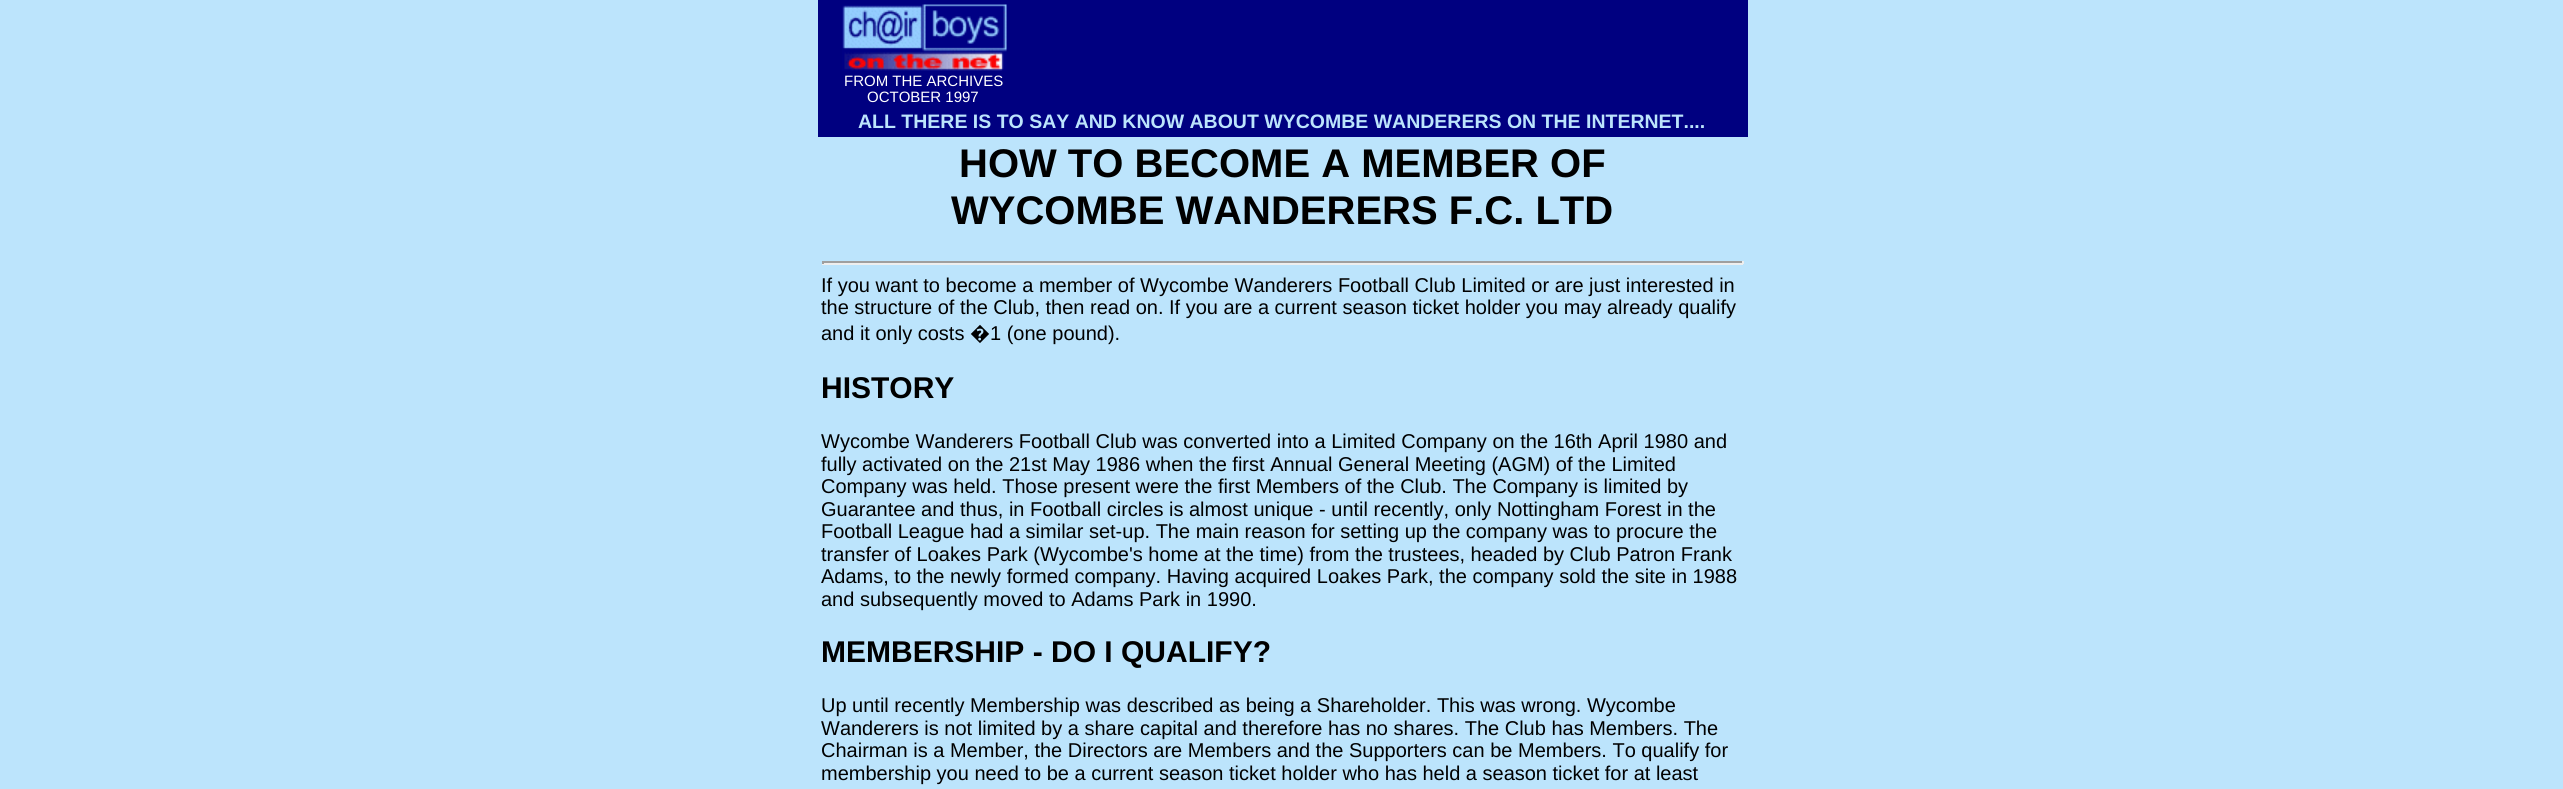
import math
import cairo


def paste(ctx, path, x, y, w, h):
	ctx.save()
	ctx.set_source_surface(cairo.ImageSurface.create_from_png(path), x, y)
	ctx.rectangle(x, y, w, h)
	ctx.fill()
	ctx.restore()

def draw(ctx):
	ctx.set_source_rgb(0.737, 0.894, 0.988)
	ctx.paint()
	ctx.set_source_rgb(0, 0, 0.502)
	ctx.rectangle(818, 0, 930, 137)
	ctx.fill()
	paste(ctx, 'media/1.png', 842, 4, 165, 67)
	ctx.select_font_face('Liberation Sans')
	ctx.set_font_size(15)
	ctx.set_source_rgb(1, 1, 1)
	ctx.move_to(844, 86)
	ctx.show_text('FROM THE ARCHIVES')
	ctx.move_to(867, 102)
	ctx.show_text('OCTOBER 1997')
	ctx.select_font_face('Liberation Sans', cairo.FONT_SLANT_NORMAL, cairo.FONT_WEIGHT_BOLD)
	ctx.set_font_size(19.5)
	ctx.set_source_rgb(0.737, 0.894, 0.988)
	ctx.move_to(858, 128)
	ctx.show_text('ALL THERE IS TO SAY AND KNOW ABOUT WYCOMBE WANDERERS ON THE INTERNET....')
	ctx.set_font_size(40)
	ctx.set_source_rgb(0, 0, 0)
	ctx.move_to(959, 177)
	ctx.show_text('HOW TO BECOME A MEMBER OF')
	ctx.move_to(951, 224)
	ctx.show_text('WYCOMBE WANDERERS F.C. LTD')
	ctx.set_source_rgb(0.624, 0.624, 0.624)
	ctx.rectangle(822, 261, 921, 2)
	ctx.fill()
	ctx.set_source_rgb(0.933, 0.933, 0.933)
	ctx.rectangle(1742, 261, 2, 3)
	ctx.rectangle(822, 263, 921, 2)
	ctx.fill()
	ctx.set_source_rgb(0.624, 0.624, 0.624)
	ctx.rectangle(822, 261, 2, 3)
	ctx.fill()
	ctx.select_font_face('Liberation Sans')
	ctx.set_font_size(20)
	ctx.set_source_rgb(0, 0, 0)
	for x, y, s in [
		(821, 292, 'If you want to become a member of Wycombe Wanderers Football Club Limited or are just interested in'),
		(821, 314, 'the structure of the Club, then read on. If you are a current season ticket holder you may already qualify'),
		(821, 340, 'and it only costs'),
	]:
		ctx.move_to(x, y)
		ctx.show_text(s)
	ctx.select_font_face('Noto Sans')
	ctx.move_to(970, 340)
	ctx.show_text('�')
	ctx.select_font_face('Liberation Sans')
	ctx.move_to(990, 340)
	ctx.show_text('1 (one pound).')
	ctx.select_font_face('Liberation Sans', cairo.FONT_SLANT_NORMAL, cairo.FONT_WEIGHT_BOLD)
	ctx.set_font_size(30)
	ctx.move_to(821, 398)
	ctx.show_text('HISTORY')
	ctx.select_font_face('Liberation Sans')
	ctx.set_font_size(20)
	for x, y, s in [
		(821, 448, 'Wycombe Wanderers Football Club was converted into a Limited Company on the 16th April 1980 and'),
		(821, 471, 'fully activated on the 21st May 1986 when the first Annual General Meeting (AGM) of the Limited'),
		(821, 493, 'Company was held. Those present were the first Members of the Club. The Company is limited by'),
		(821, 516, 'Guarantee and thus, in Football circles is almost unique - until recently, only Nottingham Forest in the'),
		(821, 538, 'Football League had a similar set-up. The main reason for setting up the company was to procure the'),
		(821, 561, 'transfer of Loakes Park (Wycombe\'s home at the time) from the trustees, headed by Club Patron Frank'),
		(821, 583, 'Adams, to the newly formed company. Having acquired Loakes Park, the company sold the site in 1988'),
		(821, 606, 'and subsequently moved to Adams Park in 1990.'),
	]:
		ctx.move_to(x, y)
		ctx.show_text(s)
	ctx.select_font_face('Liberation Sans', cairo.FONT_SLANT_NORMAL, cairo.FONT_WEIGHT_BOLD)
	ctx.set_font_size(30)
	ctx.move_to(821, 662)
	ctx.show_text('MEMBERSHIP - DO I QUALIFY?')
	ctx.select_font_face('Liberation Sans')
	ctx.set_font_size(20)
	for x, y, s in [
		(821, 712, 'Up until recently Membership was described as being a Shareholder. This was wrong. Wycombe'),
		(821, 735, 'Wanderers is not limited by a share capital and therefore has no shares. The Club has Members. The'),
		(821, 757, 'Chairman is a Member, the Directors are Members and the Supporters can be Members. To qualify for'),
		(821, 780, 'membership you need to be a current season ticket holder who has held a season ticket for at least'),
	]:
		ctx.move_to(x, y)
		ctx.show_text(s)


surface = cairo.ImageSurface(cairo.FORMAT_RGB24, 2563, 789)
ctx = cairo.Context(surface)
options = cairo.FontOptions()
options.set_hint_metrics(cairo.HINT_METRICS_OFF)
options.set_hint_style(cairo.HINT_STYLE_NONE)
ctx.set_font_options(options)
ctx.set_miter_limit(4)
draw(ctx)
surface.write_to_png('image.png')
